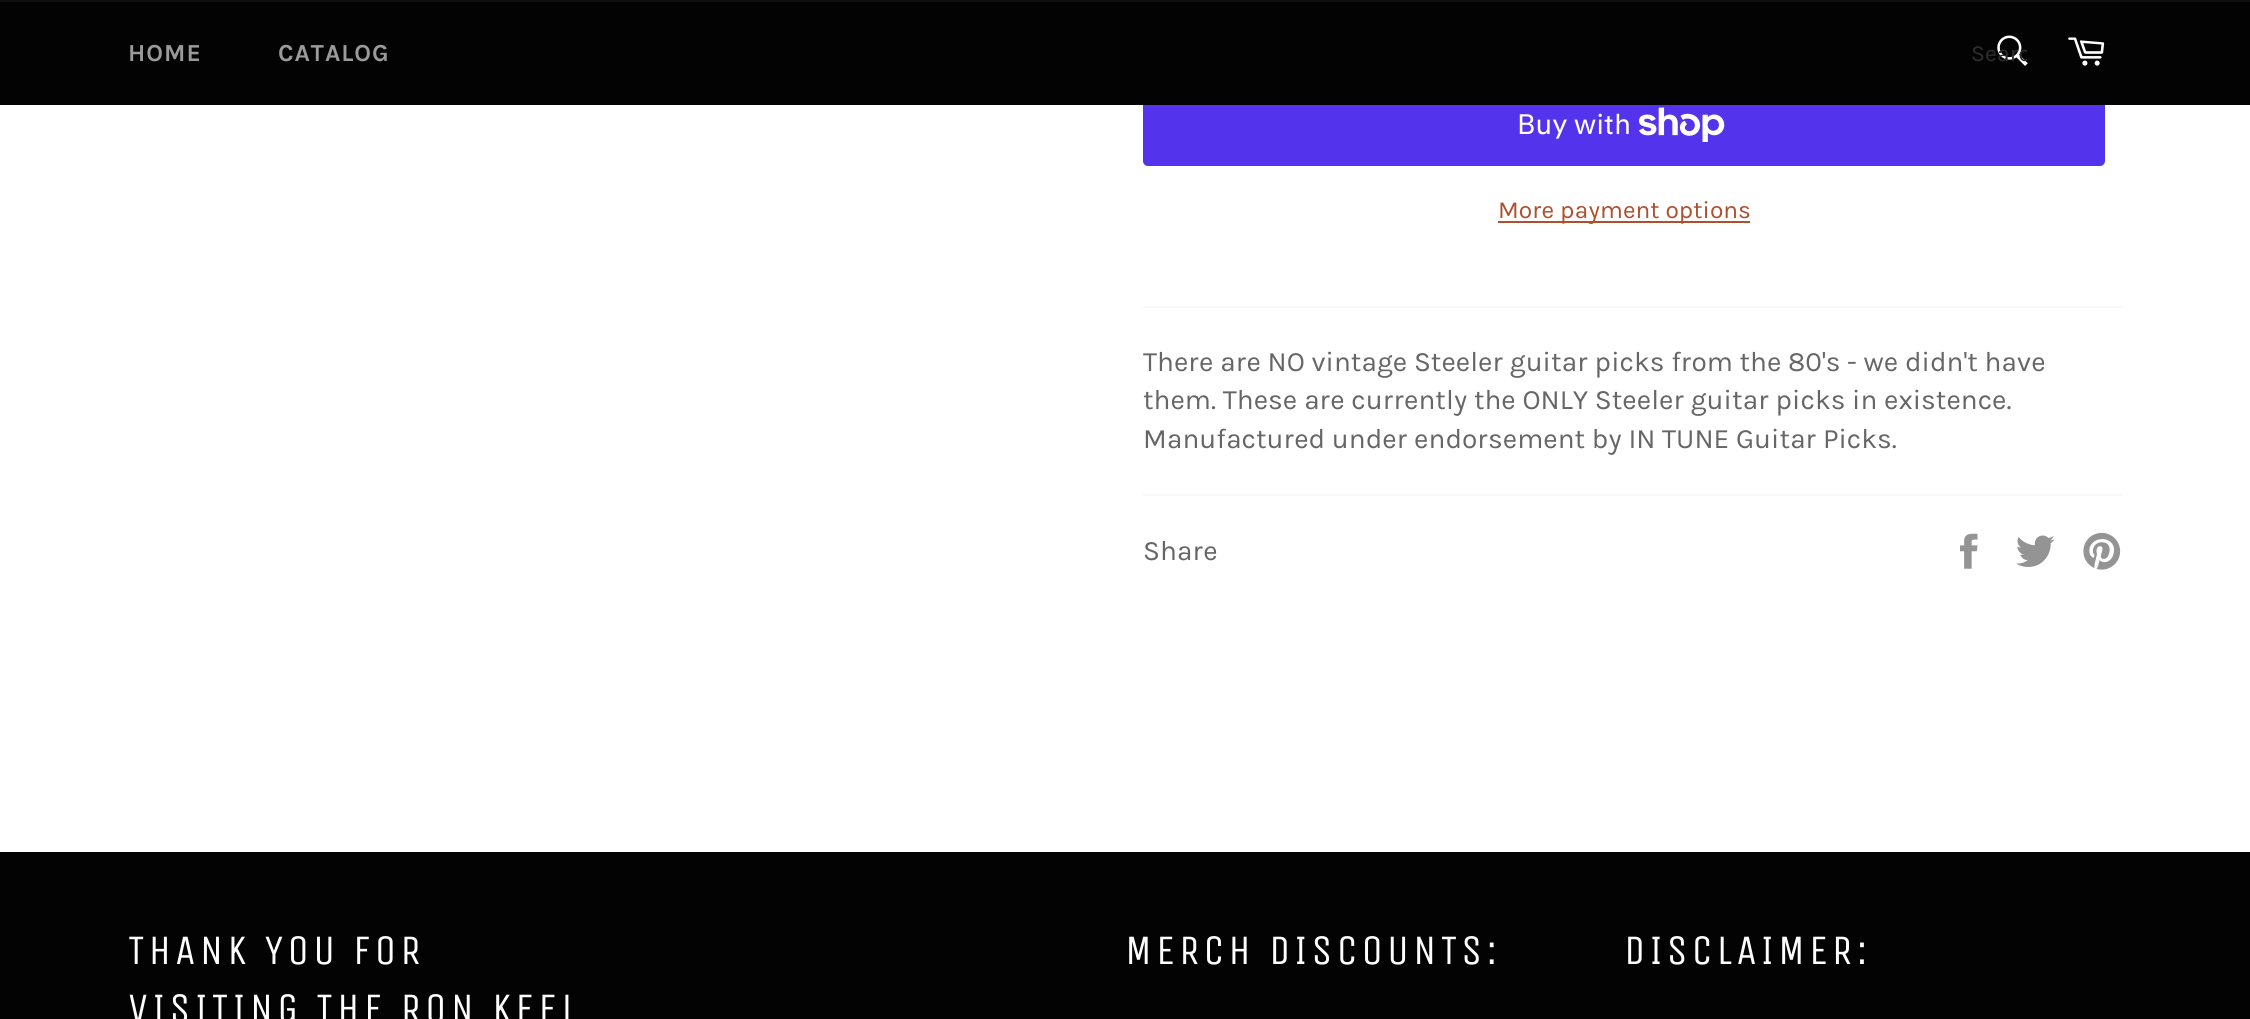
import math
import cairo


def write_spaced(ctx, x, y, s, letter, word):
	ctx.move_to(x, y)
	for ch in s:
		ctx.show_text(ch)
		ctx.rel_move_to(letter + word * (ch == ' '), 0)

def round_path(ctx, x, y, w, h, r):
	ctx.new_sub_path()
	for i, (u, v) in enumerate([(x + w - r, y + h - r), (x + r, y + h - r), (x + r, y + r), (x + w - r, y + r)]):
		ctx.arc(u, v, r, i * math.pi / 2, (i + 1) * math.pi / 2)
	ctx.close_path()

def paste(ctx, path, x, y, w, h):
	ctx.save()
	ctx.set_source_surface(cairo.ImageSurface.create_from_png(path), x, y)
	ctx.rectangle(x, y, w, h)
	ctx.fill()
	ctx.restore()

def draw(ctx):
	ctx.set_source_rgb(1, 1, 1)
	ctx.paint()
	ctx.set_source_rgb(0.329, 0.2, 0.922)
	round_path(ctx, 1143, 82, 962, 84, 5)
	ctx.fill()
	ctx.set_source_rgb(0.012, 0.012, 0.012)
	ctx.rectangle(0, 2, 2250, 103)
	ctx.fill()
	ctx.set_source_rgb(0.063, 0.063, 0.063)
	ctx.rectangle(0, 0, 2250, 2)
	ctx.fill()
	ctx.select_font_face('Karla', cairo.FONT_SLANT_NORMAL, cairo.FONT_WEIGHT_BOLD)
	ctx.set_font_size(24.5)
	ctx.set_source_rgb(0.604, 0.604, 0.604)
	write_spaced(ctx, 128, 61, 'HOME', 1, 0)
	write_spaced(ctx, 278, 61, 'CATALOG', 1, 0)
	paste(ctx, 'media/1.png', 1997, 35, 31, 31)
	ctx.save()
	ctx.rectangle(1971, 40, 56, 27)
	ctx.clip()
	ctx.select_font_face('Karla')
	ctx.set_font_size(23)
	ctx.set_source_rgb(0.176, 0.176, 0.176)
	ctx.move_to(1971, 61)
	ctx.show_text('Searc')
	ctx.restore()
	paste(ctx, 'media/2.png', 2068, 37, 37, 29)
	ctx.select_font_face('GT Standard')
	ctx.set_font_size(28)
	ctx.set_source_rgb(1, 1, 1)
	ctx.move_to(1517, 134)
	ctx.show_text('Buy with')
	paste(ctx, 'media/3.png', 1639, 107, 86, 35)
	ctx.set_source_rgb(0.675, 0.314, 0.18)
	ctx.rectangle(1498, 221, 252, 2)
	ctx.fill()
	ctx.select_font_face('Karla')
	ctx.set_font_size(24.5)
	ctx.move_to(1498, 218)
	ctx.show_text('More payment options')
	ctx.set_source_rgb(0.969, 0.969, 0.969)
	ctx.rectangle(1143, 306, 980, 2)
	ctx.fill()
	ctx.set_font_size(28)
	ctx.set_source_rgb(0.4, 0.4, 0.4)
	for x, y, s in [
		(1143, 371, 'There are NO vintage Steeler guitar picks from the 80\'s - we didn\'t have'),
		(1143, 409, 'them. These are currently the ONLY Steeler guitar picks in existence.'),
		(1143, 448, 'Manufactured under endorsement by IN TUNE Guitar Picks.'),
	]:
		ctx.move_to(x, y)
		ctx.show_text(s)
	ctx.set_source_rgb(0.969, 0.969, 0.969)
	ctx.rectangle(1143, 494, 980, 2)
	ctx.fill()
	ctx.set_source_rgb(0.4, 0.4, 0.4)
	ctx.move_to(1143, 560)
	ctx.show_text('Share')
	paste(ctx, 'media/4.png', 1960, 533, 18, 36)
	paste(ctx, 'media/5.png', 2016, 535, 39, 32)
	paste(ctx, 'media/6.png', 2083, 532, 38, 38)
	ctx.set_source_rgb(0.012, 0.012, 0.012)
	ctx.rectangle(0, 852, 2250, 167)
	ctx.fill()
	ctx.select_font_face('Unica One')
	ctx.set_font_size(42)
	ctx.set_source_rgb(1, 1, 1)
	for x, y, s in [
		(128, 964, 'THANK YOU FOR'),
		(128, 1022, 'VISITING THE RON KEEL'),
		(1125, 964, 'MERCH DISCOUNTS:'),
		(1624, 964, 'DISCLAIMER:'),
	]:
		write_spaced(ctx, x, y, s, 4.2, 0)


surface = cairo.ImageSurface(cairo.FORMAT_RGB24, 2250, 1019)
ctx = cairo.Context(surface)
options = cairo.FontOptions()
options.set_hint_metrics(cairo.HINT_METRICS_OFF)
options.set_hint_style(cairo.HINT_STYLE_NONE)
ctx.set_font_options(options)
ctx.set_miter_limit(4)
draw(ctx)
surface.write_to_png('image.png')
